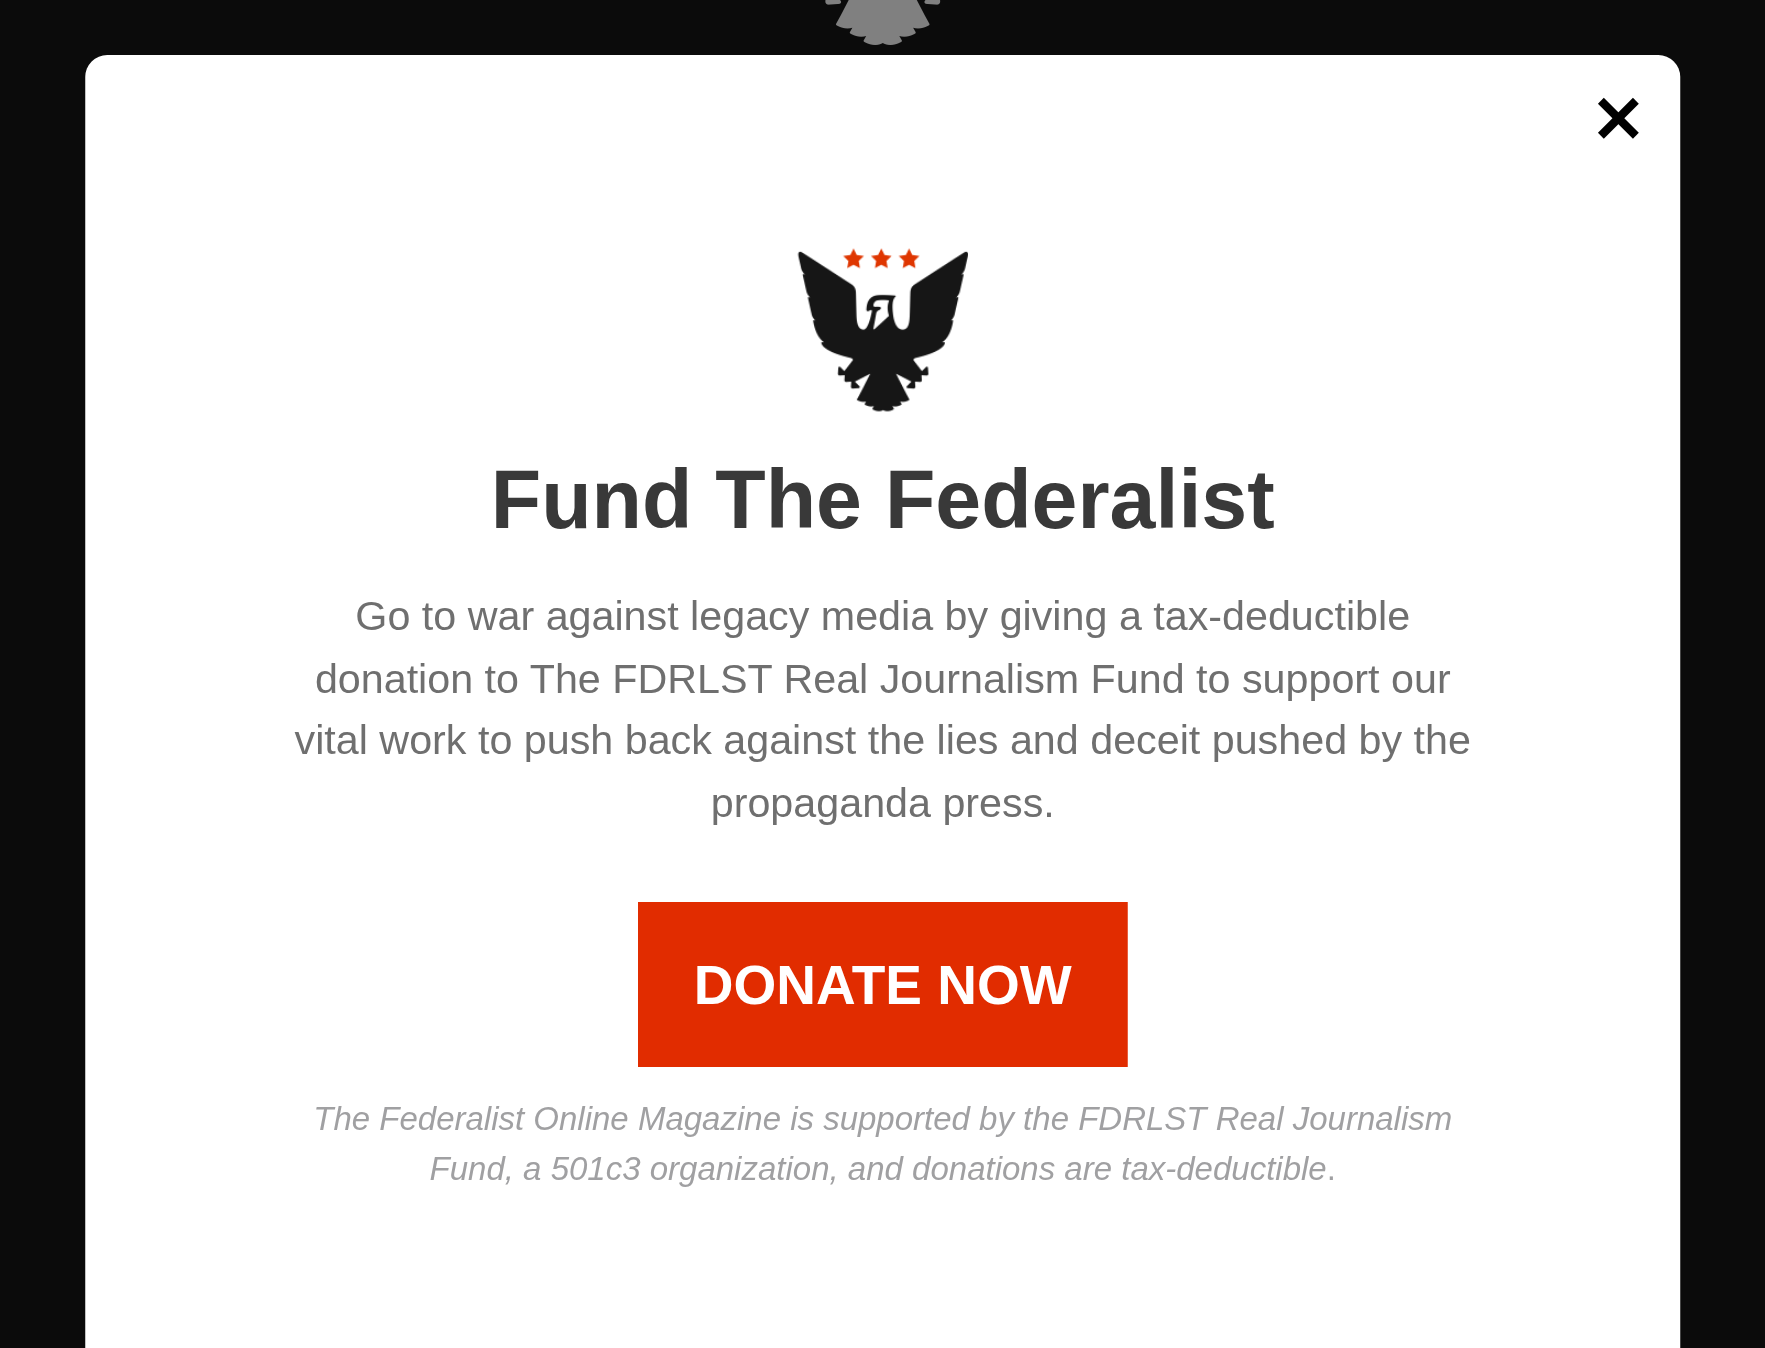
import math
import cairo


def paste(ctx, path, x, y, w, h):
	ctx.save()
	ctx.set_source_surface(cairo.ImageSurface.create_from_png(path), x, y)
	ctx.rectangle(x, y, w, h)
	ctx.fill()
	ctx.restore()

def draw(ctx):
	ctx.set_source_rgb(0.043, 0.043, 0.043)
	ctx.paint()
	paste(ctx, 'media/1.png', 825, 0, 116, 45)
	paste(ctx, 'media/2.png', 85, 55, 1596, 1293)


surface = cairo.ImageSurface(cairo.FORMAT_RGB24, 1765, 1348)
ctx = cairo.Context(surface)
options = cairo.FontOptions()
options.set_hint_metrics(cairo.HINT_METRICS_OFF)
options.set_hint_style(cairo.HINT_STYLE_NONE)
ctx.set_font_options(options)
ctx.set_miter_limit(4)
draw(ctx)
surface.write_to_png('image.png')
